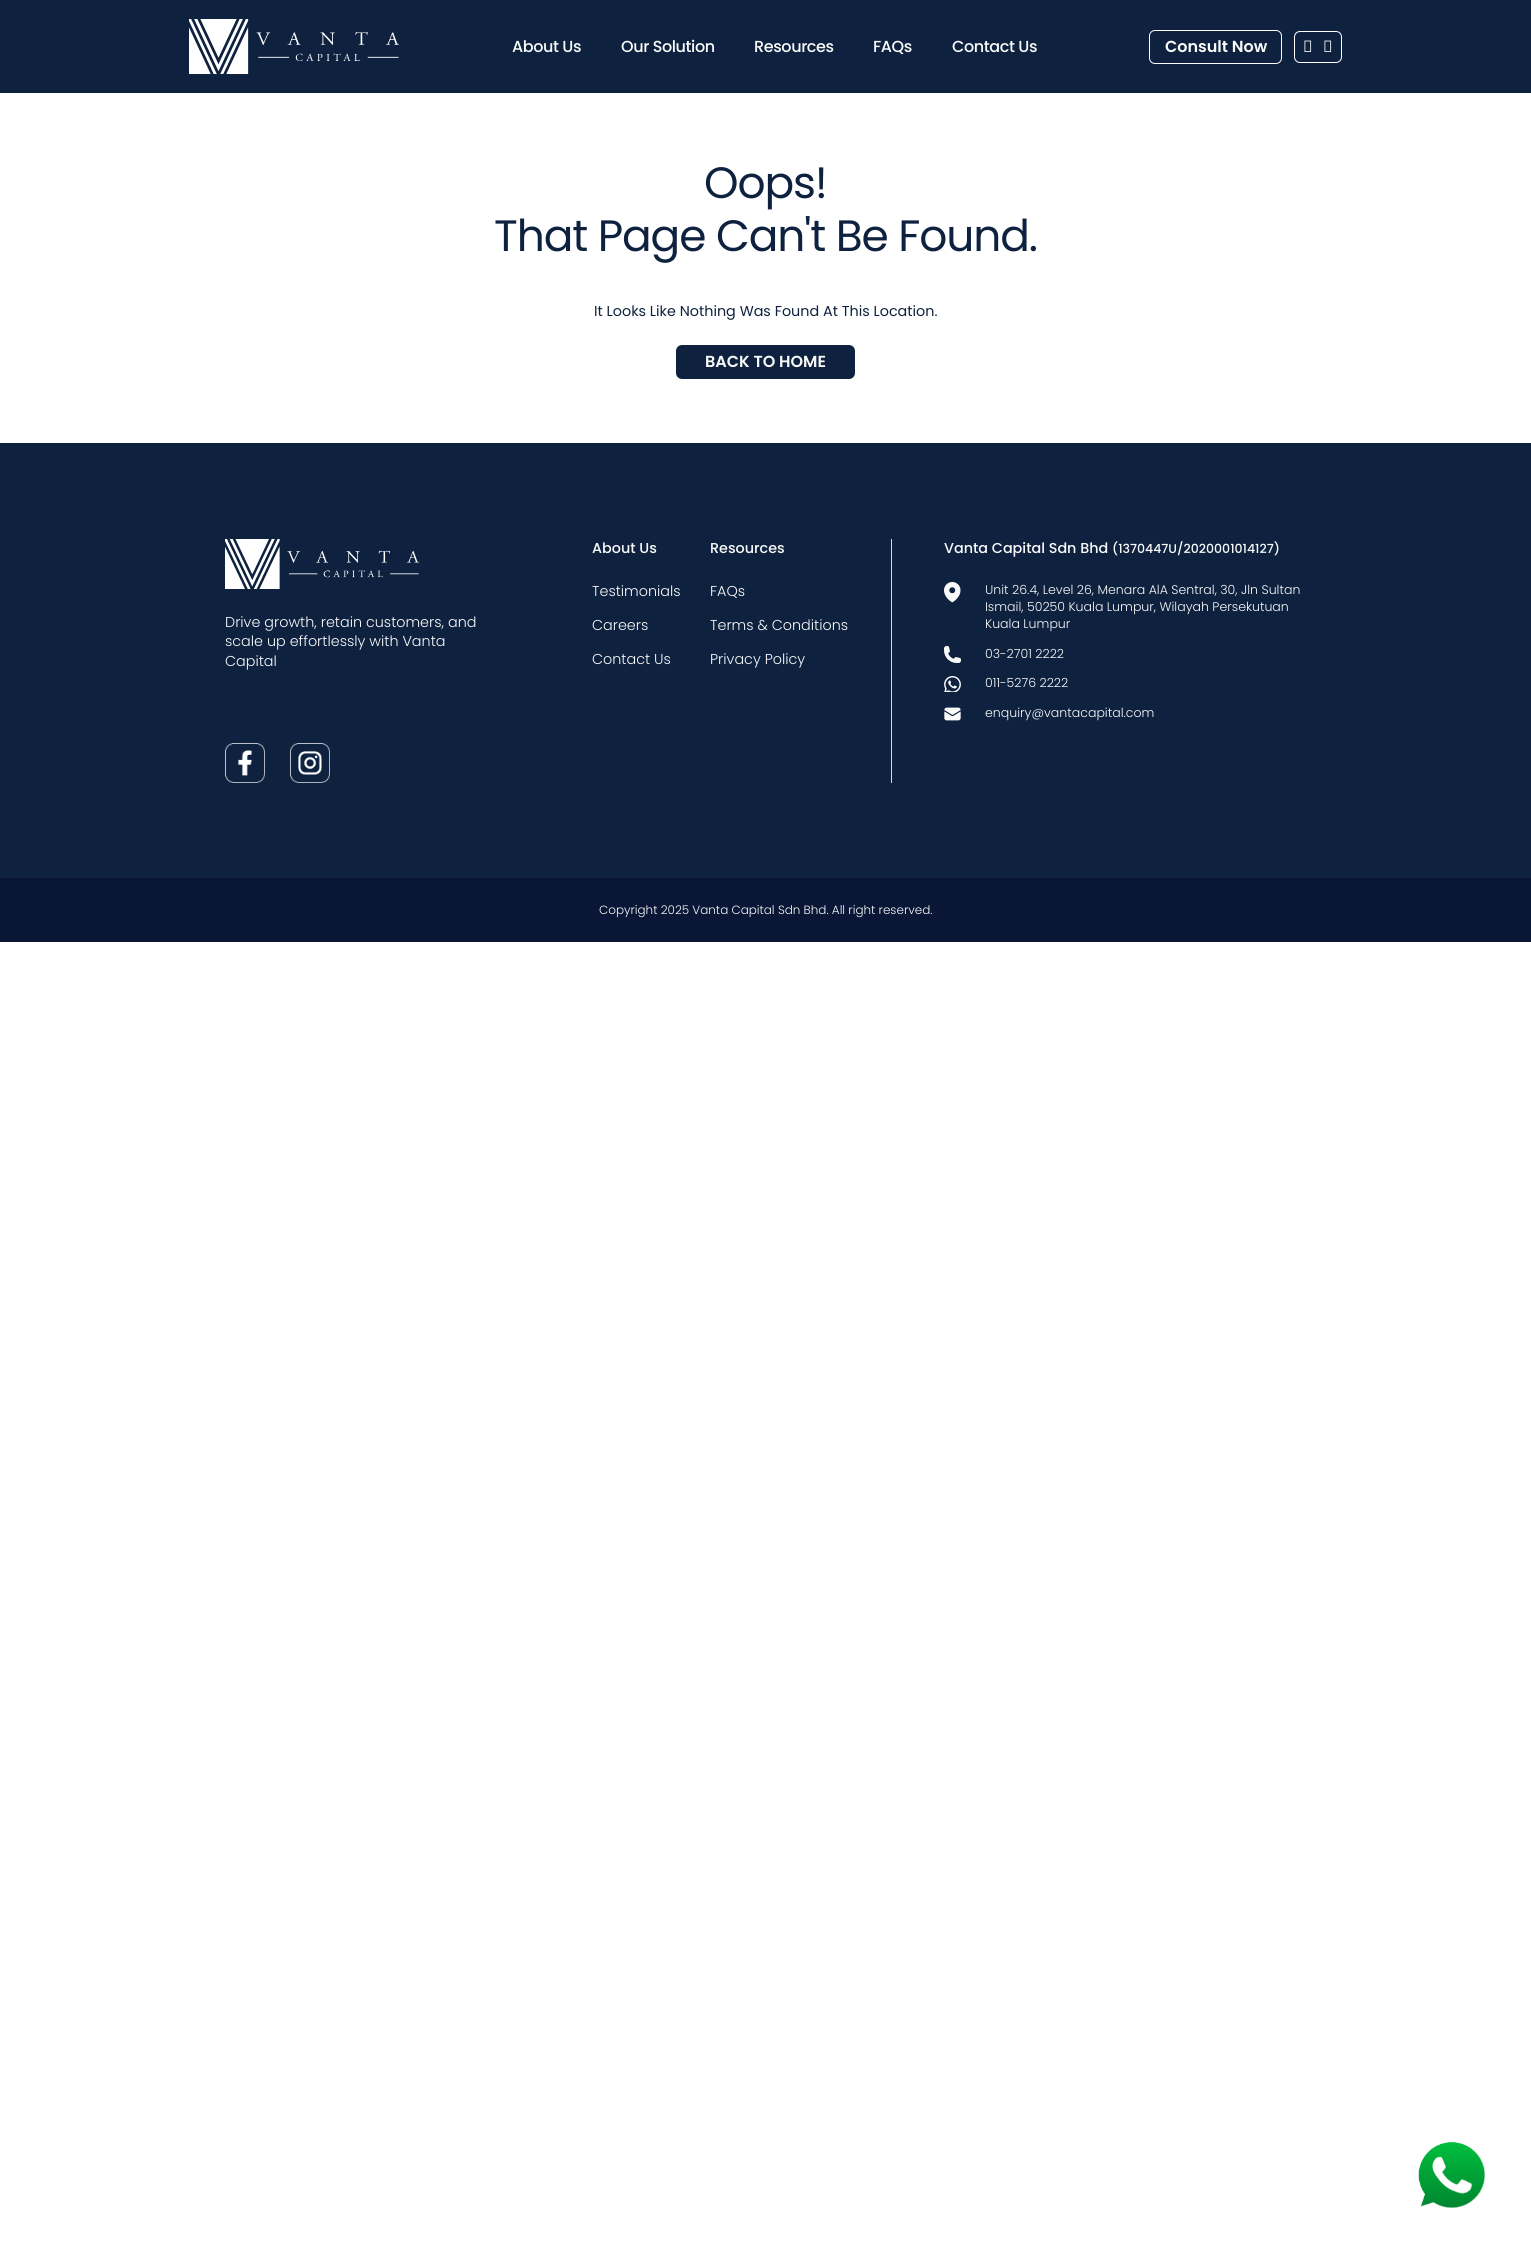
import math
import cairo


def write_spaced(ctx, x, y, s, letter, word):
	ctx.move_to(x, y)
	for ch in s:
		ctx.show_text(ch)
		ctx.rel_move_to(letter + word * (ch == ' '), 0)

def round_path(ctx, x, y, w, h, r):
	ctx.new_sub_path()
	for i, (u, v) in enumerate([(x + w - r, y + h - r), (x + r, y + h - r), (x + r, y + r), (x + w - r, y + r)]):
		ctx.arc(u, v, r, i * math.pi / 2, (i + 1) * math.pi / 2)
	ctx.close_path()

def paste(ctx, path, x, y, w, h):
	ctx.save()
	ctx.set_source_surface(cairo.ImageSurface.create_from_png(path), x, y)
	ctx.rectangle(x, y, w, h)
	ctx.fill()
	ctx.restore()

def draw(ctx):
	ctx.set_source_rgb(1, 1, 1)
	ctx.paint()
	ctx.set_source_rgb(0.055, 0.133, 0.247)
	ctx.rectangle(0, 0, 1531, 93)
	ctx.fill()
	paste(ctx, 'media/1.png', 189, 19, 210, 55)
	ctx.select_font_face('Poppins Medium')
	ctx.set_font_size(16)
	ctx.set_source_rgb(0.98, 0.98, 0.98)
	for x, y, s in [
		(512, 52, 'About Us'),
		(621, 52, 'Our Solution'),
		(754, 52, 'Resources'),
		(873, 52, 'FAQs'),
		(952, 52, 'Contact Us'),
	]:
		write_spaced(ctx, x, y, s, -0.4, 0)
	round_path(ctx, 1149.5, 30.5, 132, 33, 5.5)
	ctx.set_line_width(1)
	ctx.stroke()
	ctx.select_font_face('Poppins SemiBold')
	ctx.move_to(1165, 52)
	ctx.show_text('Consult Now')
	round_path(ctx, 1294.5, 31.5, 47, 31, 5.5)
	ctx.set_source_rgb(1, 1, 1)
	ctx.stroke()
	paste(ctx, 'media/2.png', 1304, 40, 8, 12)
	paste(ctx, 'media/2.png', 1324, 40, 8, 12)
	ctx.select_font_face('Poppins')
	ctx.set_font_size(43.9)
	ctx.set_source_rgb(0.055, 0.133, 0.247)
	write_spaced(ctx, 704, 198, 'Oops!', -1.1, 0)
	write_spaced(ctx, 494, 251, 'That Page Can\'t Be Found.', -1.1, 0)
	ctx.set_font_size(14.35)
	ctx.move_to(594, 316)
	ctx.show_text('It Looks Like Nothing Was Found At This Location.')
	round_path(ctx, 676, 345, 179, 34, 6)
	ctx.fill()
	ctx.select_font_face('Poppins SemiBold')
	ctx.set_font_size(16)
	ctx.set_source_rgb(0.98, 0.98, 0.98)
	ctx.move_to(705, 367)
	ctx.show_text('BACK TO HOME')
	ctx.set_source_rgb(0.055, 0.133, 0.247)
	ctx.rectangle(0, 443, 1531, 435)
	ctx.fill()
	paste(ctx, 'media/3.png', 225, 539, 194, 50)
	ctx.select_font_face('Poppins Light')
	ctx.set_font_size(14.35)
	ctx.set_source_rgb(0.98, 0.98, 0.98)
	for x, y, s in [
		(225, 627, 'Drive growth, retain customers, and'),
		(225, 646, 'scale up effortlessly with Vanta'),
		(225, 666, 'Capital'),
	]:
		ctx.move_to(x, y)
		ctx.show_text(s)
	paste(ctx, 'media/4.png', 225, 743, 40, 40)
	paste(ctx, 'media/5.png', 290, 743, 40, 40)
	ctx.select_font_face('Poppins Medium')
	ctx.move_to(592, 553)
	ctx.show_text('About Us')
	ctx.select_font_face('Poppins Light')
	for x, y, s in [
		(592, 596, 'Testimonials'),
		(592, 630, 'Careers'),
		(592, 664, 'Contact Us'),
	]:
		ctx.move_to(x, y)
		ctx.show_text(s)
	ctx.select_font_face('Poppins Medium')
	ctx.move_to(710, 553)
	ctx.show_text('Resources')
	ctx.select_font_face('Poppins Light')
	for x, y, s in [
		(710, 596, 'FAQs'),
		(710, 630, 'Terms & Conditions'),
		(710, 664, 'Privacy Policy'),
	]:
		ctx.move_to(x, y)
		ctx.show_text(s)
	ctx.set_source_rgb(0.851, 0.851, 0.851)
	ctx.rectangle(891, 539, 1, 244)
	ctx.fill()
	ctx.select_font_face('Poppins Medium')
	ctx.set_source_rgb(0.98, 0.98, 0.98)
	ctx.move_to(944, 553)
	ctx.show_text('Vanta Capital Sdn Bhd')
	ctx.set_font_size(12.55)
	ctx.move_to(1112, 553)
	ctx.show_text('(1370447U/2020001014127)')
	paste(ctx, 'media/6.png', 944, 582, 17, 21)
	ctx.select_font_face('Poppins Light')
	for x, y, s in [
		(985, 594, 'Unit 26.4, Level 26, Menara AlA Sentral, 30, Jln Sultan'),
		(985, 611, 'Ismail, 50250 Kuala Lumpur, Wilayah Persekutuan'),
		(985, 628, 'Kuala Lumpur'),
	]:
		ctx.move_to(x, y)
		ctx.show_text(s)
	paste(ctx, 'media/7.png', 944, 646, 17, 17)
	ctx.move_to(985, 658)
	ctx.show_text('03-2701 2222')
	paste(ctx, 'media/8.png', 944, 676, 17, 16)
	ctx.move_to(985, 687)
	ctx.show_text('011-5276 2222')
	paste(ctx, 'media/9.png', 944, 707, 17, 14)
	ctx.move_to(985, 717)
	ctx.show_text('enquiry@vantacapital.com')
	ctx.set_source_rgb(0.039, 0.086, 0.208)
	ctx.rectangle(0, 878, 1531, 64)
	ctx.fill()
	ctx.set_font_size(11.95)
	ctx.set_source_rgb(0.98, 0.98, 0.98)
	ctx.move_to(599, 914)
	ctx.show_text('Copyright 2025 Vanta Capital Sdn Bhd. All right reserved.')
	paste(ctx, 'media/10.png', 1418, 2141, 67, 67)


surface = cairo.ImageSurface(cairo.FORMAT_RGB24, 1531, 2256)
ctx = cairo.Context(surface)
options = cairo.FontOptions()
options.set_hint_metrics(cairo.HINT_METRICS_OFF)
options.set_hint_style(cairo.HINT_STYLE_NONE)
ctx.set_font_options(options)
ctx.set_miter_limit(4)
draw(ctx)
surface.write_to_png('image.png')
